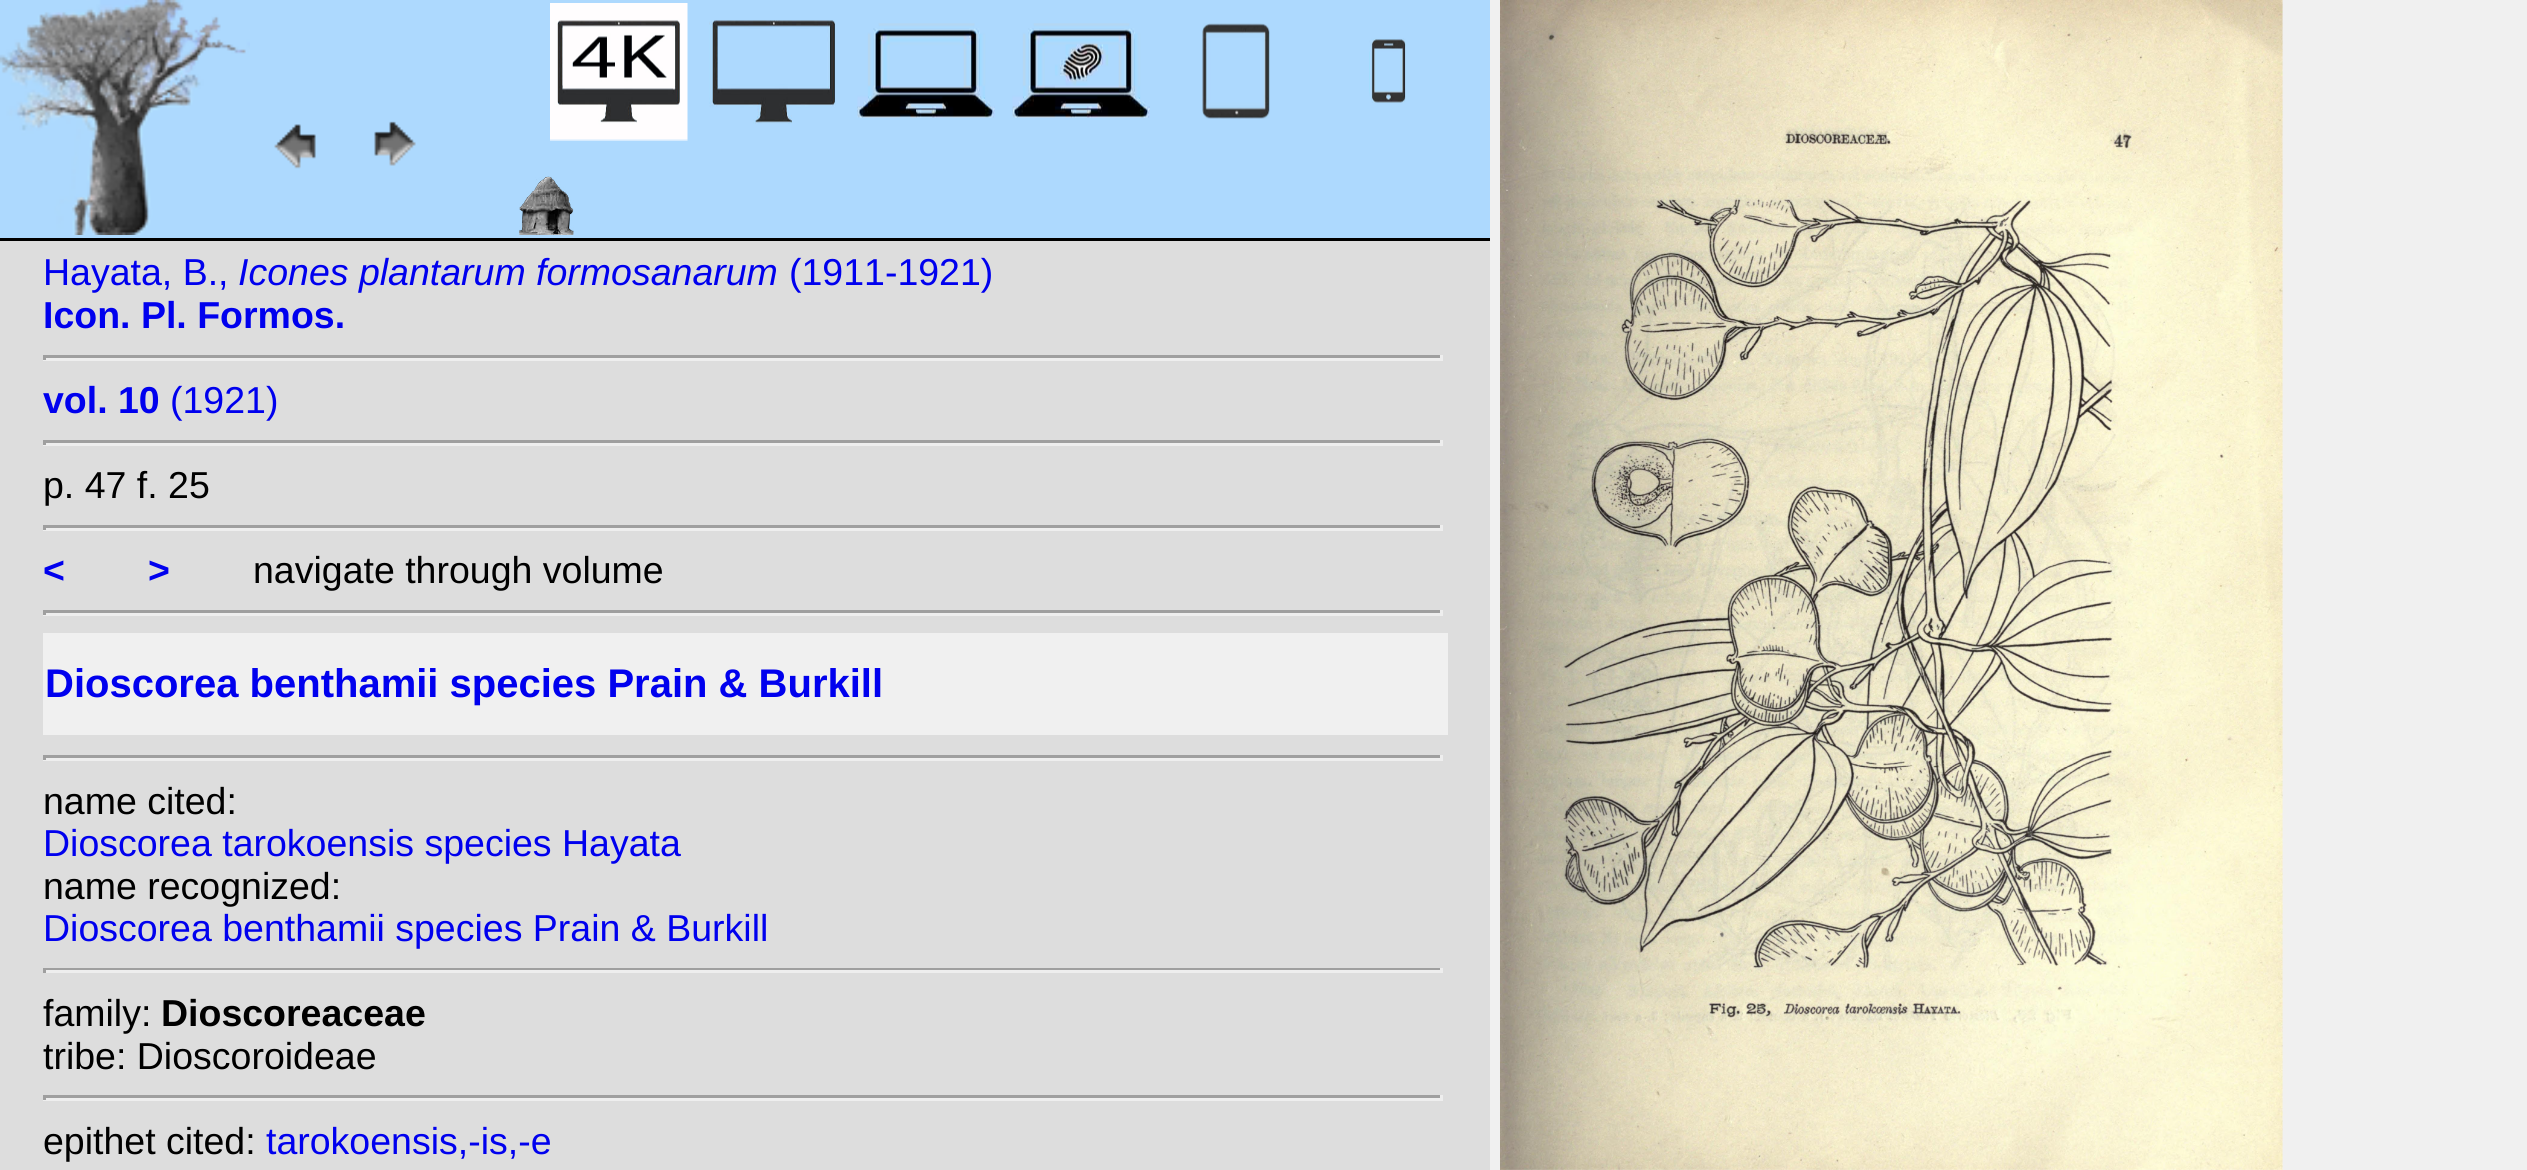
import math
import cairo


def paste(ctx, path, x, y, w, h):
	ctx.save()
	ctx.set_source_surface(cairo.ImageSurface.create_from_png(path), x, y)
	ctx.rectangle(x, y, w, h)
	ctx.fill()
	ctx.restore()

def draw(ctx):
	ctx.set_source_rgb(0.941, 0.941, 0.941)
	ctx.paint()
	ctx.set_source_rgb(0.867, 0.867, 0.867)
	ctx.rectangle(0, 241, 1490, 929)
	ctx.fill()
	ctx.set_source_rgb(0.678, 0.851, 0.996)
	ctx.rectangle(0, 0, 1490, 238)
	ctx.fill()
	ctx.set_source_rgb(0, 0, 0)
	ctx.rectangle(0, 238, 1490, 3)
	ctx.fill()
	paste(ctx, 'media/1.png', 0, 0, 250, 235)
	paste(ctx, 'media/2.png', 274, 124, 42, 45)
	paste(ctx, 'media/3.png', 374, 121, 42, 45)
	paste(ctx, 'media/4.png', 550, 3, 138, 138)
	paste(ctx, 'media/5.png', 709, 20, 127, 104)
	paste(ctx, 'media/6.png', 857, 23, 138, 95)
	paste(ctx, 'media/7.png', 1012, 23, 138, 95)
	paste(ctx, 'media/8.png', 1202, 23, 68, 96)
	paste(ctx, 'media/9.png', 1369, 38, 37, 65)
	paste(ctx, 'media/10.png', 519, 176, 55, 59)
	ctx.select_font_face('Liberation Sans')
	ctx.set_font_size(37.5)
	ctx.set_source_rgb(0, 0, 0.933)
	ctx.move_to(43, 285)
	ctx.show_text('Hayata, B.,')
	ctx.select_font_face('Liberation Sans', cairo.FONT_SLANT_ITALIC)
	ctx.move_to(238, 285)
	ctx.show_text('Icones plantarum formosanarum')
	ctx.select_font_face('Liberation Sans')
	ctx.move_to(789, 285)
	ctx.show_text('(1911-1921)')
	ctx.select_font_face('Liberation Sans', cairo.FONT_SLANT_NORMAL, cairo.FONT_WEIGHT_BOLD)
	ctx.move_to(43, 328)
	ctx.show_text('Icon. Pl. Formos.')
	ctx.set_source_rgb(0.624, 0.624, 0.624)
	ctx.rectangle(43, 355, 1400, 3)
	ctx.fill()
	ctx.set_source_rgb(0.933, 0.933, 0.933)
	ctx.rectangle(1440, 355, 3, 5)
	ctx.rectangle(43, 358, 1400, 3)
	ctx.fill()
	ctx.set_source_rgb(0.624, 0.624, 0.624)
	ctx.rectangle(43, 355, 3, 5)
	ctx.fill()
	ctx.set_source_rgb(0, 0, 0.933)
	ctx.move_to(43, 413)
	ctx.show_text('vol. 10')
	ctx.select_font_face('Liberation Sans')
	ctx.move_to(170, 413)
	ctx.show_text('(1921)')
	ctx.set_source_rgb(0.624, 0.624, 0.624)
	ctx.rectangle(43, 440, 1400, 3)
	ctx.fill()
	ctx.set_source_rgb(0.933, 0.933, 0.933)
	ctx.rectangle(1440, 440, 3, 5)
	ctx.rectangle(43, 443, 1400, 3)
	ctx.fill()
	ctx.set_source_rgb(0.624, 0.624, 0.624)
	ctx.rectangle(43, 440, 3, 5)
	ctx.fill()
	ctx.set_source_rgb(0, 0, 0)
	ctx.move_to(43, 498)
	ctx.show_text('p. 47 f. 25')
	ctx.set_source_rgb(0.624, 0.624, 0.624)
	ctx.rectangle(43, 525, 1400, 3)
	ctx.fill()
	ctx.set_source_rgb(0.933, 0.933, 0.933)
	ctx.rectangle(1440, 525, 3, 5)
	ctx.rectangle(43, 528, 1400, 3)
	ctx.fill()
	ctx.set_source_rgb(0.624, 0.624, 0.624)
	ctx.rectangle(43, 525, 3, 5)
	ctx.fill()
	ctx.select_font_face('Liberation Sans', cairo.FONT_SLANT_NORMAL, cairo.FONT_WEIGHT_BOLD)
	ctx.set_source_rgb(0, 0, 0.933)
	ctx.move_to(43, 583)
	ctx.show_text('<')
	ctx.move_to(148, 583)
	ctx.show_text('>')
	ctx.select_font_face('Liberation Sans')
	ctx.set_source_rgb(0, 0, 0)
	ctx.move_to(253, 583)
	ctx.show_text('navigate through volume')
	ctx.set_source_rgb(0.624, 0.624, 0.624)
	ctx.rectangle(43, 610, 1400, 3)
	ctx.fill()
	ctx.set_source_rgb(0.933, 0.933, 0.933)
	ctx.rectangle(1440, 610, 3, 5)
	ctx.rectangle(43, 613, 1400, 3)
	ctx.fill()
	ctx.set_source_rgb(0.624, 0.624, 0.624)
	ctx.rectangle(43, 610, 3, 5)
	ctx.fill()
	ctx.set_source_rgb(0.941, 0.941, 0.941)
	ctx.rectangle(43, 633, 1405, 102)
	ctx.fill()
	ctx.select_font_face('Liberation Sans', cairo.FONT_SLANT_NORMAL, cairo.FONT_WEIGHT_BOLD)
	ctx.set_font_size(40)
	ctx.set_source_rgb(0, 0, 0.933)
	ctx.move_to(45, 697)
	ctx.show_text('Dioscorea benthamii species Prain & Burkill')
	ctx.set_source_rgb(0.624, 0.624, 0.624)
	ctx.rectangle(43, 755, 1400, 3)
	ctx.fill()
	ctx.set_source_rgb(0.933, 0.933, 0.933)
	ctx.rectangle(1440, 755, 3, 5)
	ctx.rectangle(43, 758, 1400, 3)
	ctx.fill()
	ctx.set_source_rgb(0.624, 0.624, 0.624)
	ctx.rectangle(43, 755, 3, 5)
	ctx.fill()
	ctx.select_font_face('Liberation Sans')
	ctx.set_font_size(37.5)
	ctx.set_source_rgb(0, 0, 0)
	ctx.move_to(43, 814)
	ctx.show_text('name cited:')
	ctx.set_source_rgb(0, 0, 0.933)
	ctx.move_to(43, 856)
	ctx.show_text('Dioscorea tarokoensis species Hayata')
	ctx.set_source_rgb(0, 0, 0)
	ctx.move_to(43, 899)
	ctx.show_text('name recognized:')
	ctx.set_source_rgb(0, 0, 0.933)
	ctx.move_to(43, 941)
	ctx.show_text('Dioscorea benthamii species Prain & Burkill')
	ctx.set_source_rgb(0.624, 0.624, 0.624)
	ctx.rectangle(43, 968, 1400, 2)
	ctx.fill()
	ctx.set_source_rgb(0.933, 0.933, 0.933)
	ctx.rectangle(1440, 968, 3, 5)
	ctx.rectangle(43, 970, 1400, 3)
	ctx.fill()
	ctx.set_source_rgb(0.624, 0.624, 0.624)
	ctx.rectangle(43, 968, 3, 5)
	ctx.fill()
	ctx.set_source_rgb(0, 0, 0)
	ctx.move_to(43, 1026)
	ctx.show_text('family:')
	ctx.select_font_face('Liberation Sans', cairo.FONT_SLANT_NORMAL, cairo.FONT_WEIGHT_BOLD)
	ctx.move_to(161, 1026)
	ctx.show_text('Dioscoreaceae')
	ctx.select_font_face('Liberation Sans')
	ctx.move_to(43, 1069)
	ctx.show_text('tribe: Dioscoroideae')
	ctx.set_source_rgb(0.624, 0.624, 0.624)
	ctx.rectangle(43, 1095, 1400, 3)
	ctx.fill()
	ctx.set_source_rgb(0.933, 0.933, 0.933)
	ctx.rectangle(1440, 1095, 3, 5)
	ctx.rectangle(43, 1098, 1400, 3)
	ctx.fill()
	ctx.set_source_rgb(0.624, 0.624, 0.624)
	ctx.rectangle(43, 1095, 3, 5)
	ctx.fill()
	ctx.set_source_rgb(0, 0, 0)
	ctx.move_to(43, 1154)
	ctx.show_text('epithet cited:')
	ctx.set_source_rgb(0, 0, 0.933)
	ctx.move_to(266, 1154)
	ctx.show_text('tarokoensis,-is,-e')
	paste(ctx, 'media/11.png', 1500, 0, 783, 1170)


surface = cairo.ImageSurface(cairo.FORMAT_RGB24, 2527, 1170)
ctx = cairo.Context(surface)
options = cairo.FontOptions()
options.set_hint_metrics(cairo.HINT_METRICS_OFF)
options.set_hint_style(cairo.HINT_STYLE_NONE)
ctx.set_font_options(options)
ctx.set_miter_limit(4)
draw(ctx)
surface.write_to_png('image.png')
